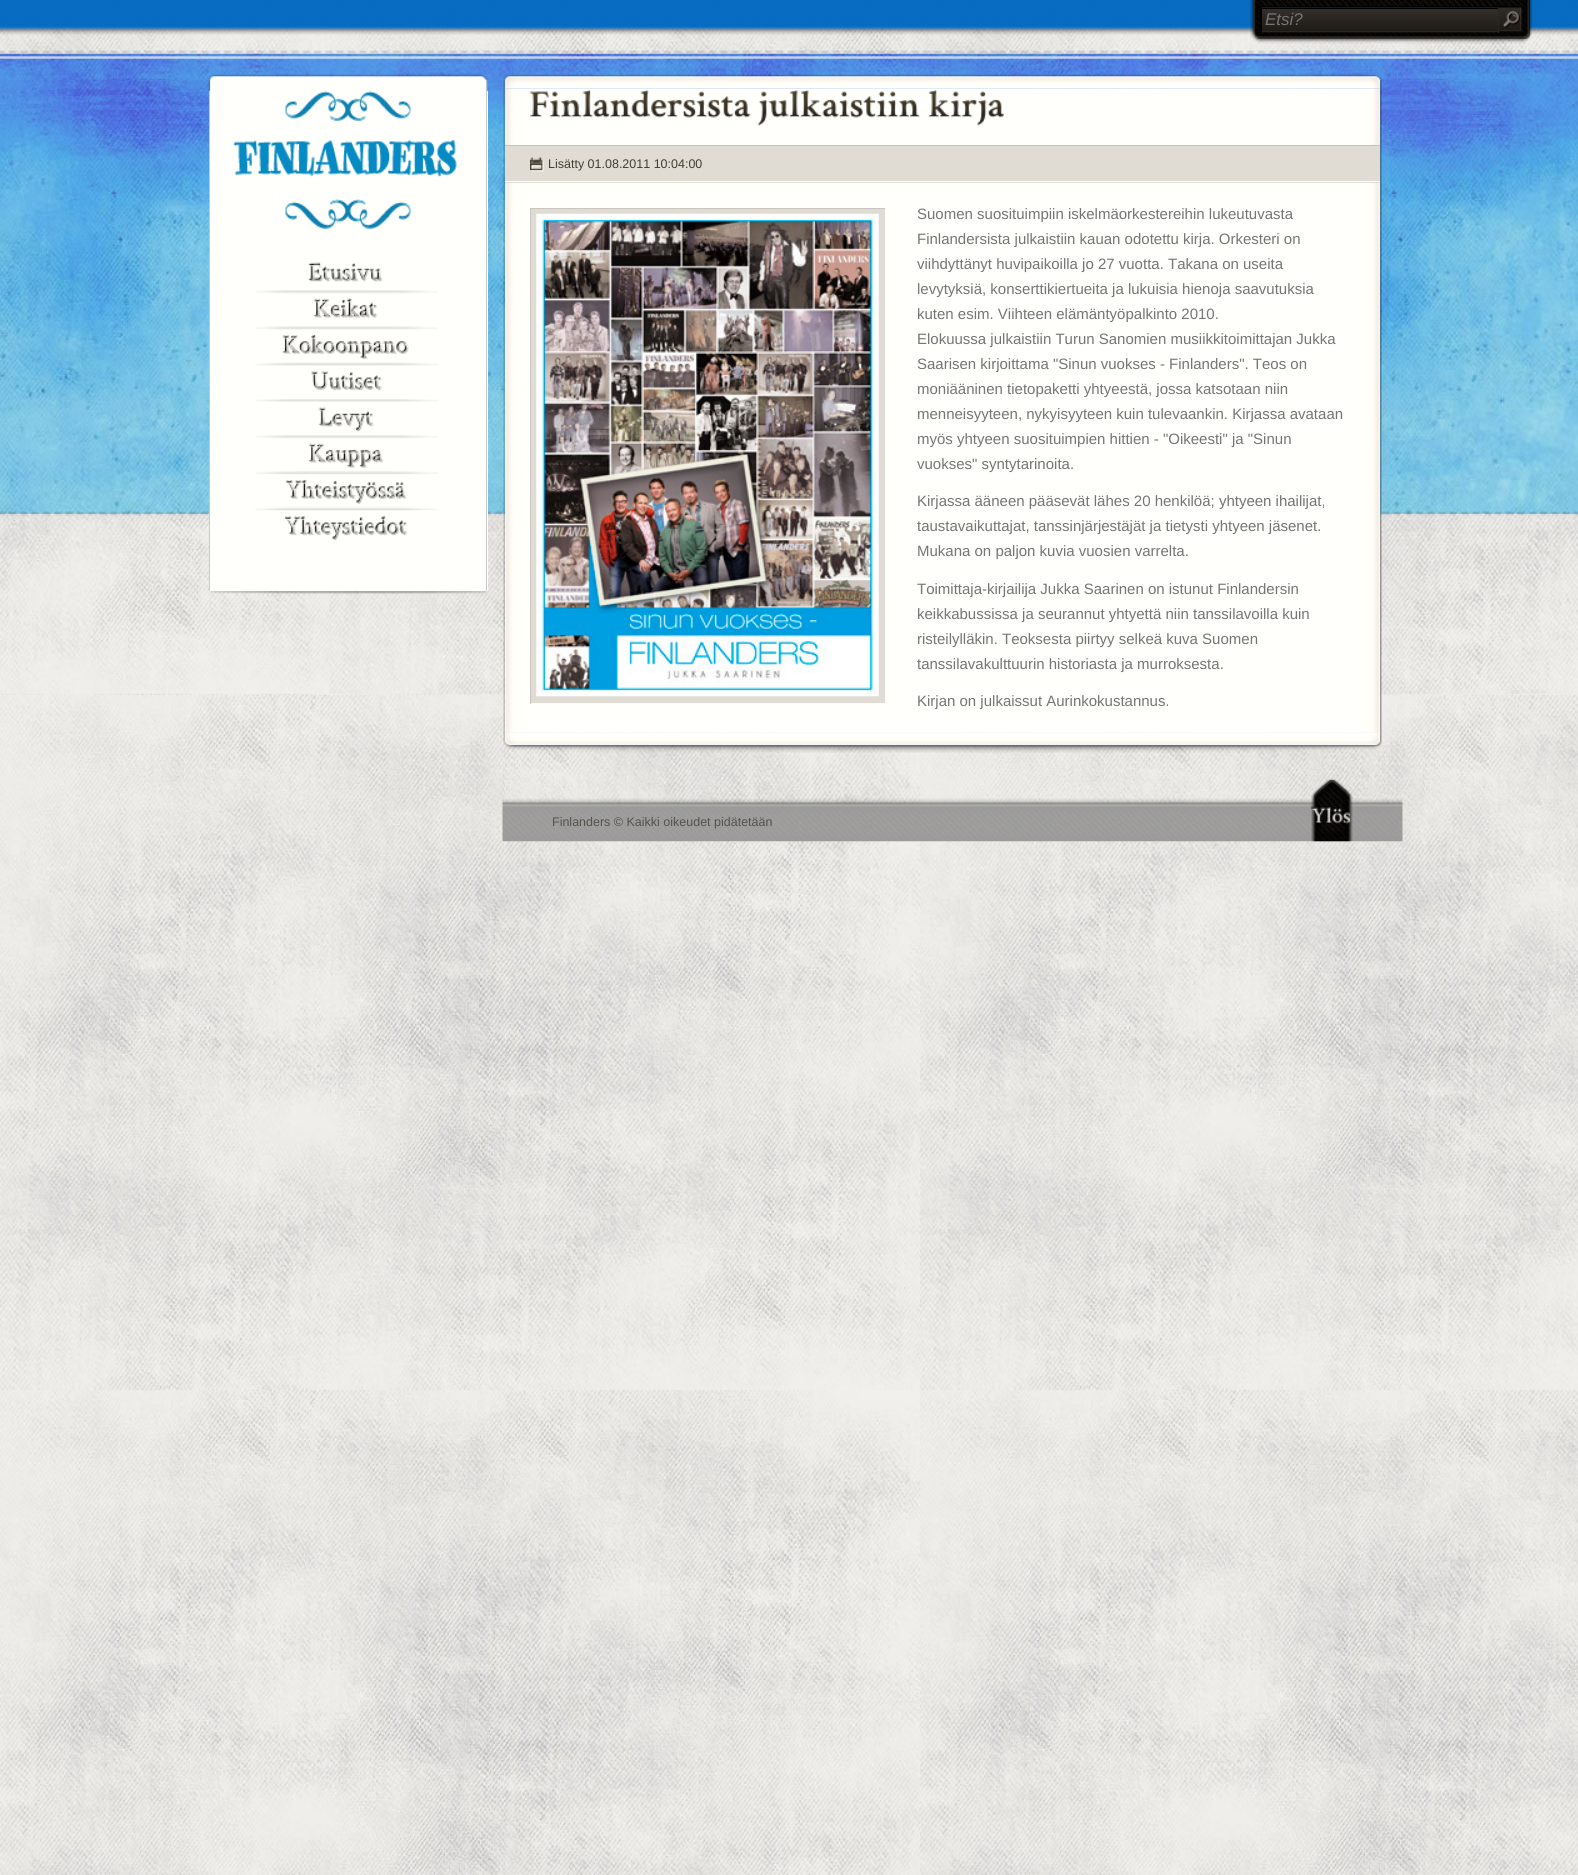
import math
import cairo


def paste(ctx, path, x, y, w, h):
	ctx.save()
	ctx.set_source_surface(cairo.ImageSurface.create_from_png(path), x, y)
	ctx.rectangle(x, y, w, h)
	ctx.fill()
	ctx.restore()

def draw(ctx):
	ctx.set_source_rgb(1, 1, 1)
	ctx.paint()
	paste(ctx, 'media/1.png', 0, 693, 1578, 1182)
	paste(ctx, 'media/2.png', 0, 27, 1578, 667)
	paste(ctx, 'media/3.png', 0, 0, 1578, 35)
	paste(ctx, 'media/4.png', 1250, 0, 283, 44)
	paste(ctx, 'media/5.png', 1261, 7, 238, 26)
	ctx.set_source_rgb(0, 0, 0)
	ctx.rectangle(1261, 8, 238, 1)
	ctx.fill()
	ctx.set_source_rgb(0.165, 0.153, 0.133)
	ctx.rectangle(1498, 8, 1, 25)
	ctx.rectangle(1261, 31, 238, 1)
	ctx.fill()
	ctx.set_source_rgb(0, 0, 0)
	ctx.rectangle(1261, 8, 1, 25)
	ctx.fill()
	ctx.select_font_face('Liberation Sans', cairo.FONT_SLANT_ITALIC)
	ctx.set_font_size(17)
	ctx.set_source_rgb(0.459, 0.459, 0.459)
	ctx.move_to(1265, 25)
	ctx.show_text('Etsi?')
	paste(ctx, 'media/6.png', 1503, 11, 18, 17)
	paste(ctx, 'media/7.png', 207, 74, 281, 18)
	ctx.set_source_rgb(1, 1, 0.984)
	ctx.rectangle(210, 91, 278, 500)
	ctx.fill()
	ctx.set_source_rgb(0.784, 0.784, 0.784)
	ctx.rectangle(486, 91, 1, 500)
	ctx.rectangle(209, 91, 1, 500)
	ctx.fill()
	paste(ctx, 'media/8.png', 233, 91, 224, 138)
	paste(ctx, 'media/9.png', 308, 262, 75, 20)
	paste(ctx, 'media/10.png', 255, 290, 183, 4)
	paste(ctx, 'media/11.png', 313, 298, 65, 20)
	paste(ctx, 'media/12.png', 255, 326, 183, 4)
	paste(ctx, 'media/13.png', 282, 334, 127, 25)
	paste(ctx, 'media/14.png', 255, 362, 184, 4)
	paste(ctx, 'media/15.png', 311, 371, 72, 20)
	paste(ctx, 'media/16.png', 255, 399, 184, 3)
	paste(ctx, 'media/17.png', 318, 407, 56, 25)
	paste(ctx, 'media/10.png', 255, 435, 183, 4)
	paste(ctx, 'media/18.png', 308, 443, 76, 25)
	paste(ctx, 'media/12.png', 255, 471, 183, 4)
	paste(ctx, 'media/19.png', 286, 479, 121, 25)
	paste(ctx, 'media/14.png', 255, 507, 184, 4)
	paste(ctx, 'media/20.png', 284, 516, 124, 24)
	paste(ctx, 'media/21.png', 211, 591, 276, 3)
	paste(ctx, 'media/22.png', 503, 74, 879, 15)
	paste(ctx, 'media/29.png', 503, 732, 879, 21)
	paste(ctx, 'media/23.png', 503, 88, 879, 645)
	paste(ctx, 'media/24.png', 529, 89, 222, 29)
	paste(ctx, 'media/25.png', 757, 90, 163, 36)
	paste(ctx, 'media/26.png', 928, 89, 76, 37)
	ctx.set_source_rgb(0.878, 0.863, 0.831)
	ctx.rectangle(505, 146, 875, 37)
	ctx.fill()
	ctx.set_source_rgb(0.773, 0.757, 0.729)
	ctx.rectangle(505, 145, 875, 1)
	ctx.fill()
	ctx.set_source_rgb(0.992, 0.992, 0.988)
	ctx.rectangle(505, 181, 875, 1)
	ctx.fill()
	paste(ctx, 'media/27.png', 530, 157, 14, 15)
	ctx.select_font_face('Liberation Sans')
	ctx.set_font_size(12.5)
	ctx.set_source_rgb(0.263, 0.239, 0.188)
	ctx.move_to(548, 168)
	ctx.show_text('Lisätty 01.08.2011 10:04:00')
	ctx.set_source_rgb(0.878, 0.863, 0.831)
	ctx.rectangle(531, 209, 354, 494)
	ctx.fill()
	ctx.set_source_rgb(0.792, 0.776, 0.749)
	ctx.rectangle(530, 208, 356, 1)
	ctx.fill()
	ctx.set_source_rgb(0.988, 0.988, 0.98)
	ctx.rectangle(885, 208, 1, 496)
	ctx.rectangle(530, 703, 356, 1)
	ctx.fill()
	ctx.set_source_rgb(0.792, 0.776, 0.749)
	ctx.rectangle(530, 208, 1, 496)
	ctx.fill()
	paste(ctx, 'media/28.png', 536, 213, 343, 484)
	ctx.set_font_size(15)
	ctx.set_source_rgb(0.459, 0.459, 0.459)
	for x, y, s in [
		(917, 219, 'Suomen suosituimpiin iskelmäorkestereihin lukeutuvasta'),
		(917, 244, 'Finlandersista julkaistiin kauan odotettu kirja. Orkesteri on'),
		(917, 269, 'viihdyttänyt huvipaikoilla jo 27 vuotta. Takana on useita'),
		(917, 294, 'levytyksiä, konserttikiertueita ja lukuisia hienoja saavutuksia'),
		(917, 319, 'kuten esim. Viihteen elämäntyöpalkinto 2010.'),
		(917, 344, 'Elokuussa julkaistiin Turun Sanomien musiikkitoimittajan Jukka'),
		(917, 369, 'Saarisen kirjoittama "Sinun vuokses - Finlanders". Teos on'),
		(917, 394, 'moniääninen tietopaketti yhtyeestä, jossa katsotaan niin'),
		(917, 419, 'menneisyyteen, nykyisyyteen kuin tulevaankin. Kirjassa avataan'),
		(917, 444, 'myös yhtyeen suosituimpien hittien - "Oikeesti" ja "Sinun'),
		(917, 469, 'vuokses" syntytarinoita.'),
		(917, 506, 'Kirjassa ääneen pääsevät lähes 20 henkilöä; yhtyeen ihailijat,'),
		(917, 531, 'taustavaikuttajat, tanssinjärjestäjät ja tietysti yhtyeen jäsenet.'),
		(917, 556, 'Mukana on paljon kuvia vuosien varrelta.'),
		(917, 594, 'Toimittaja-kirjailija Jukka Saarinen on istunut Finlandersin'),
		(917, 619, 'keikkabussissa ja seurannut yhtyettä niin tanssilavoilla kuin'),
		(917, 644, 'risteilylläkin. Teoksesta piirtyy selkeä kuva Suomen'),
		(917, 669, 'tanssilavakulttuurin historiasta ja murroksesta.'),
		(917, 706, 'Kirjan on julkaissut Aurinkokustannus.'),
	]:
		ctx.move_to(x, y)
		ctx.show_text(s)
	paste(ctx, 'media/30.png', 502, 798, 901, 44)
	ctx.set_font_size(12.5)
	ctx.set_source_rgb(0.337, 0.318, 0.294)
	ctx.move_to(552, 826)
	ctx.show_text('Finlanders © Kaikki oikeudet pidätetään')
	paste(ctx, 'media/31.png', 1311, 778, 42, 64)
	paste(ctx, 'media/32.png', 1310, 806, 41, 18)


surface = cairo.ImageSurface(cairo.FORMAT_RGB24, 1578, 1875)
ctx = cairo.Context(surface)
options = cairo.FontOptions()
options.set_hint_metrics(cairo.HINT_METRICS_OFF)
options.set_hint_style(cairo.HINT_STYLE_NONE)
ctx.set_font_options(options)
ctx.set_miter_limit(4)
draw(ctx)
surface.write_to_png('image.png')
